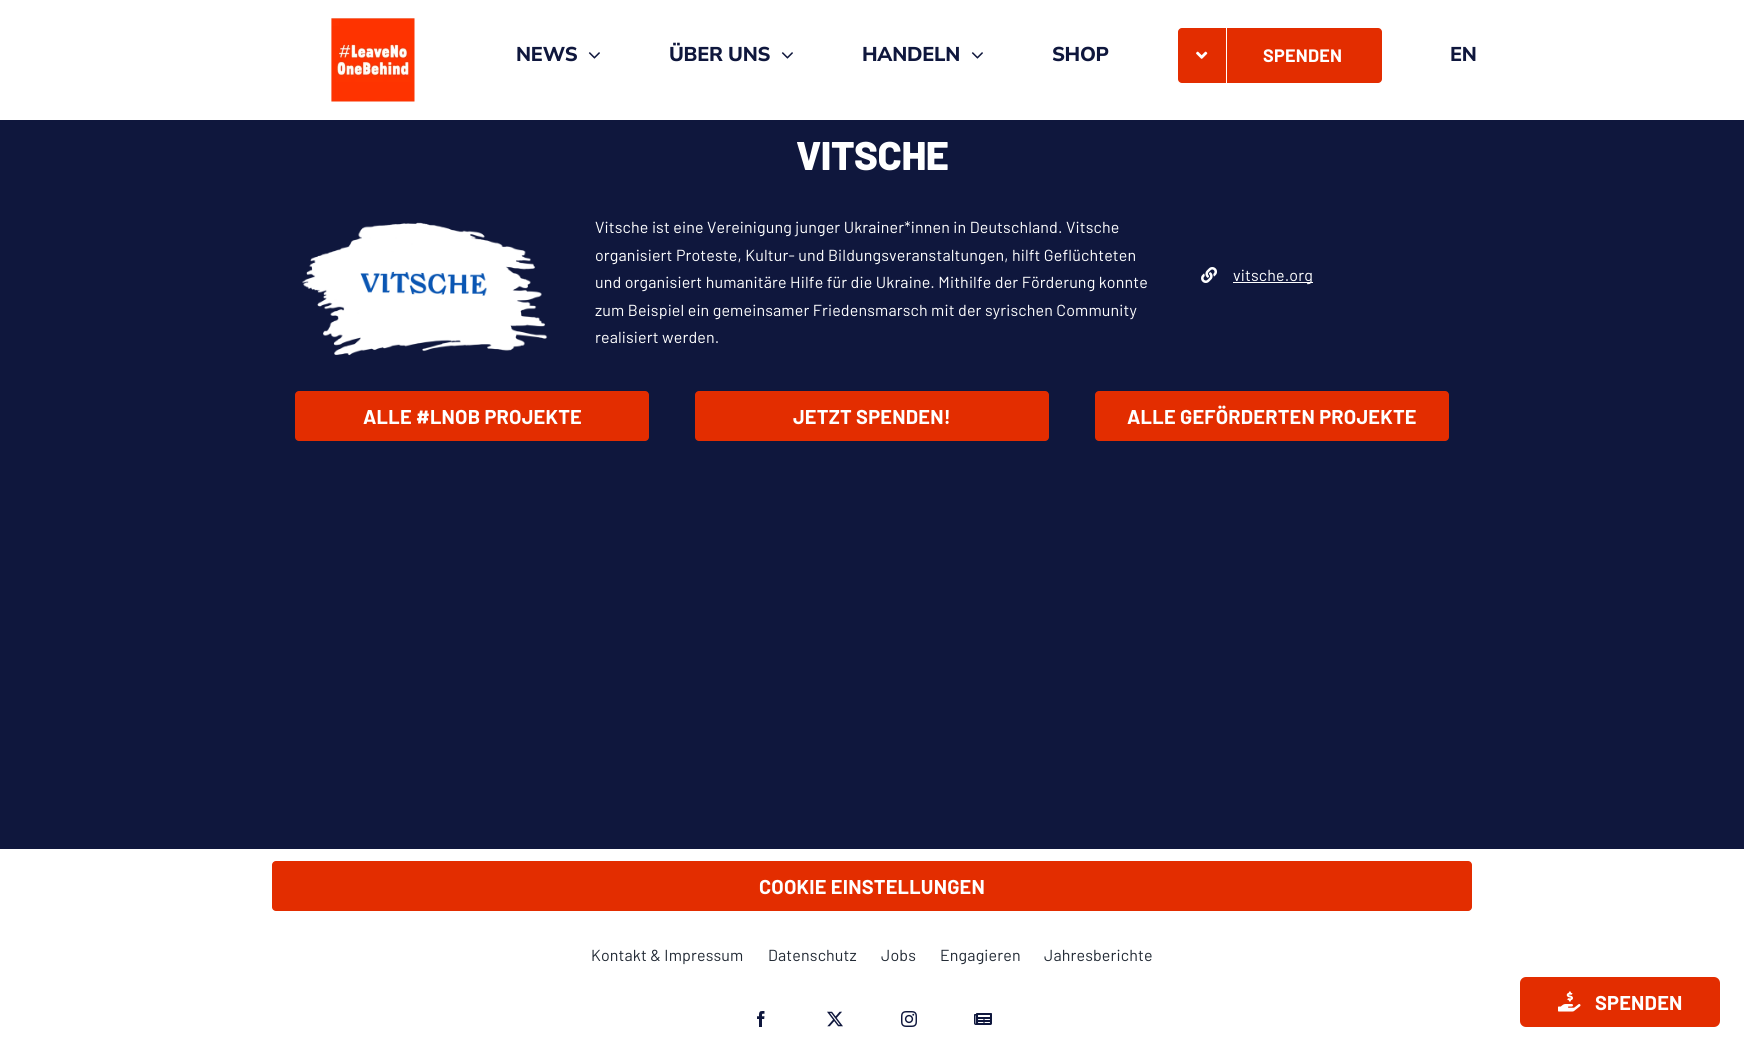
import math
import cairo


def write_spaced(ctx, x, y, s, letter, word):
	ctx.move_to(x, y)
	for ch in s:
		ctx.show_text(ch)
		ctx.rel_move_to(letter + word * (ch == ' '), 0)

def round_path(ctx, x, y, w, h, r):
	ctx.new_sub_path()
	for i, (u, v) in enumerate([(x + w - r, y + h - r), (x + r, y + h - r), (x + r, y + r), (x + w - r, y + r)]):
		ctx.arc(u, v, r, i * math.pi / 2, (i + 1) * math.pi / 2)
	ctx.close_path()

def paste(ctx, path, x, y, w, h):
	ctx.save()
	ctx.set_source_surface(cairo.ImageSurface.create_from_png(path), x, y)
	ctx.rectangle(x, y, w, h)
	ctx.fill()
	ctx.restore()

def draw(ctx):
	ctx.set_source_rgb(0.059, 0.09, 0.239)
	ctx.paint()
	ctx.set_source_rgb(1, 1, 1)
	ctx.rectangle(0, 0, 1744, 120)
	ctx.fill()
	paste(ctx, 'media/1.png', 331, 18, 84, 84)
	ctx.select_font_face('Nunito Sans ExtraBold')
	ctx.set_font_size(20)
	ctx.set_source_rgb(0.059, 0.09, 0.239)
	write_spaced(ctx, 516, 61, 'NEWS', -0.25, 0)
	paste(ctx, 'media/2.png', 588, 52, 12, 7)
	write_spaced(ctx, 669, 61, 'ÜBER UNS', -0.25, 0)
	paste(ctx, 'media/2.png', 781, 52, 12, 7)
	write_spaced(ctx, 862, 61, 'HANDELN', -0.25, 0)
	paste(ctx, 'media/2.png', 971, 52, 12, 7)
	write_spaced(ctx, 1052, 61, 'SHOP', -0.25, 0)
	ctx.set_source_rgb(0.89, 0.176, 0)
	round_path(ctx, 1178, 28, 204, 55, 4)
	ctx.fill()
	ctx.set_source_rgb(1, 1, 1)
	ctx.rectangle(1226, 28, 1, 55)
	ctx.fill()
	paste(ctx, 'media/3.png', 1196, 51, 12, 8)
	ctx.select_font_face('Barlow', cairo.FONT_SLANT_NORMAL, cairo.FONT_WEIGHT_BOLD)
	ctx.set_font_size(18)
	write_spaced(ctx, 1263, 62, 'SPENDEN', 0.25, 0)
	ctx.select_font_face('Nunito Sans ExtraBold')
	ctx.set_font_size(20)
	ctx.set_source_rgb(0.059, 0.09, 0.239)
	write_spaced(ctx, 1450, 61, 'EN', -0.25, 0)
	ctx.select_font_face('Barlow ExtraBold')
	ctx.set_font_size(40)
	ctx.set_source_rgb(1, 1, 1)
	write_spaced(ctx, 796, 170, 'VITSCHE', -0.5, 0)
	paste(ctx, 'media/4.png', 302, 222, 246, 134)
	ctx.select_font_face('Barlow')
	ctx.set_font_size(16)
	for x, y, s in [
		(595, 233, 'Vitsche ist eine Vereinigung junger Ukrainer*innen in Deutschland. Vitsche'),
		(595, 261, 'organisiert Proteste, Kultur- und Bildungsveranstaltungen, hilft Geflüchteten'),
		(595, 288, 'und organisiert humanitäre Hilfe für die Ukraine. Mithilfe der Förderung konnte'),
		(595, 316, 'zum Beispiel ein gemeinsamer Friedensmarsch mit der syrischen Community'),
		(595, 343, 'realisiert werden.'),
	]:
		write_spaced(ctx, x, y, s, 0.15, 0)
	paste(ctx, 'media/5.png', 1201, 267, 16, 16)
	ctx.rectangle(1233, 282, 80, 1)
	ctx.fill()
	write_spaced(ctx, 1233, 281, 'vitsche.org', 0.15, 0)
	ctx.set_source_rgb(0.89, 0.176, 0)
	round_path(ctx, 295, 391, 354, 50, 4)
	ctx.fill()
	ctx.select_font_face('Barlow', cairo.FONT_SLANT_NORMAL, cairo.FONT_WEIGHT_BOLD)
	ctx.set_font_size(20)
	ctx.set_source_rgb(1, 1, 1)
	write_spaced(ctx, 363, 424, 'ALLE #LNOB PROJEKTE', 0.2, 0)
	ctx.set_source_rgb(0.89, 0.176, 0)
	round_path(ctx, 695, 391, 354, 50, 4)
	ctx.fill()
	ctx.set_source_rgb(1, 1, 1)
	write_spaced(ctx, 793, 424, 'JETZT SPENDEN!', 0.2, 0)
	ctx.set_source_rgb(0.89, 0.176, 0)
	round_path(ctx, 1095, 391, 354, 50, 4)
	ctx.fill()
	ctx.set_source_rgb(1, 1, 1)
	write_spaced(ctx, 1127, 424, 'ALLE GEFÖRDERTEN PROJEKTE', 0.2, 0)
	ctx.rectangle(0, 849, 1744, 202)
	ctx.fill()
	ctx.set_source_rgb(0.89, 0.176, 0)
	round_path(ctx, 272, 861, 1200, 50, 4)
	ctx.fill()
	ctx.set_source_rgb(1, 1, 1)
	write_spaced(ctx, 759, 894, 'COOKIE EINSTELLUNGEN', 0.2, 0)
	ctx.select_font_face('Barlow')
	ctx.set_font_size(16)
	ctx.set_source_rgb(0.129, 0.161, 0.204)
	for x, y, s in [
		(591, 961, 'Kontakt & Impressum'),
		(768, 961, 'Datenschutz'),
		(881, 961, 'Jobs'),
		(940, 961, 'Engagieren'),
		(1044, 961, 'Jahresberichte'),
	]:
		write_spaced(ctx, x, y, s, 0.15, 0)
	paste(ctx, 'media/6.png', 757, 1011, 8, 16)
	paste(ctx, 'media/7.png', 827, 1011, 16, 16)
	paste(ctx, 'media/8.png', 901, 1011, 16, 16)
	paste(ctx, 'media/9.png', 974, 1013, 18, 12)
	ctx.set_source_rgb(0.89, 0.176, 0)
	round_path(ctx, 1520, 977, 200, 50, 6)
	ctx.fill()
	paste(ctx, 'media/10.png', 1558, 991, 23, 21)
	ctx.select_font_face('Barlow', cairo.FONT_SLANT_NORMAL, cairo.FONT_WEIGHT_BOLD)
	ctx.set_font_size(20)
	ctx.set_source_rgb(1, 1, 1)
	write_spaced(ctx, 1595, 1010, 'SPENDEN', 0.2, 0)


surface = cairo.ImageSurface(cairo.FORMAT_RGB24, 1744, 1051)
ctx = cairo.Context(surface)
options = cairo.FontOptions()
options.set_hint_metrics(cairo.HINT_METRICS_OFF)
options.set_hint_style(cairo.HINT_STYLE_NONE)
ctx.set_font_options(options)
ctx.set_miter_limit(4)
draw(ctx)
surface.write_to_png('image.png')
